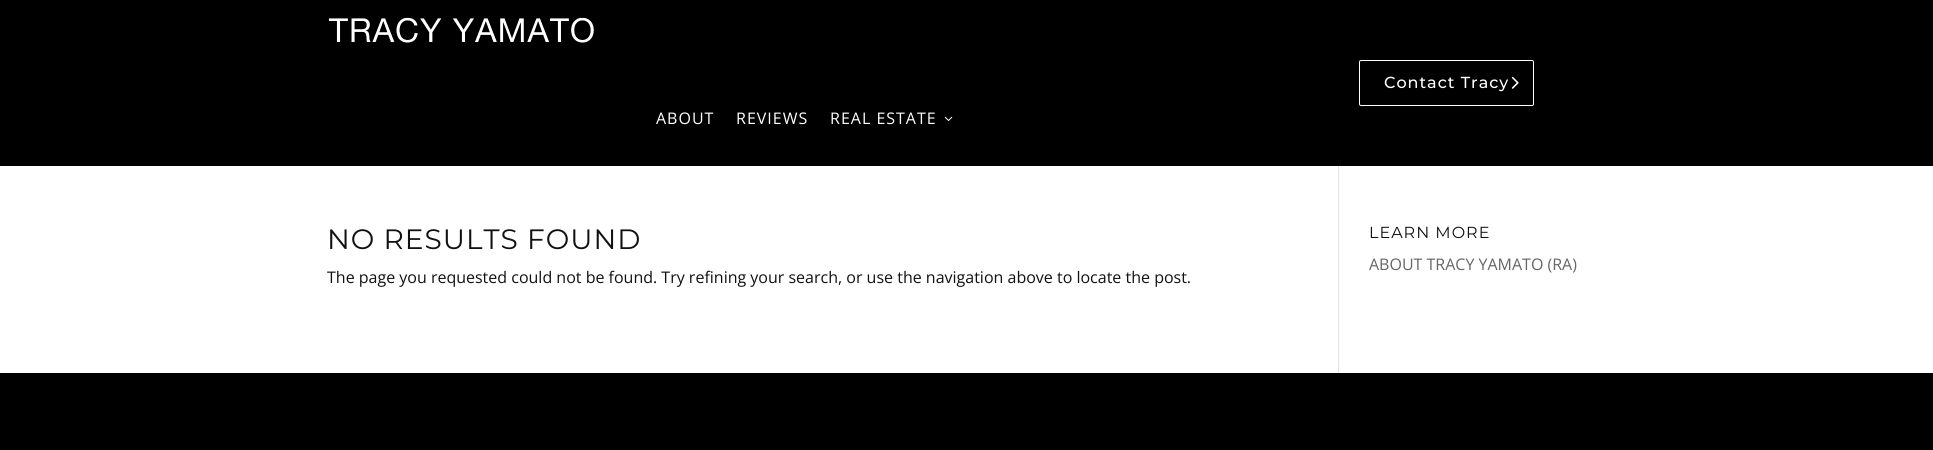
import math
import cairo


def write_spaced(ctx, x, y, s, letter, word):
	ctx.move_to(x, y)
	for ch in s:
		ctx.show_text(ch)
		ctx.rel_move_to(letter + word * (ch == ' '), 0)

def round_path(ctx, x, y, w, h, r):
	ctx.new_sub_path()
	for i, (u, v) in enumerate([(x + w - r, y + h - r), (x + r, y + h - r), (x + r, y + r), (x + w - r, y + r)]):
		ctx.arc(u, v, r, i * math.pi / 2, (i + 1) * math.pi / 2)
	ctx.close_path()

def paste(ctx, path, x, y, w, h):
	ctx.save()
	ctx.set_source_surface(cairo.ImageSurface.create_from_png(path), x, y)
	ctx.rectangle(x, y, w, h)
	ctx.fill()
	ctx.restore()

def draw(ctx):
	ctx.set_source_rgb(1, 1, 1)
	ctx.paint()
	ctx.set_source_rgb(0, 0, 0)
	ctx.rectangle(0, 0, 1933, 166)
	ctx.fill()
	round_path(ctx, 1359.5, 60.5, 174, 45, 1.5)
	ctx.set_source_rgb(1, 1, 1)
	ctx.set_line_width(1)
	ctx.stroke()
	ctx.select_font_face('Montserrat Medium')
	ctx.set_font_size(16)
	write_spaced(ctx, 1384, 88, 'Contact Tracy', 1, 0)
	paste(ctx, 'media/1.png', 1511, 76, 8, 13)
	paste(ctx, 'media/2.png', 329, 17, 265, 26)
	ctx.select_font_face('Open Sans')
	for x, y, s in [
		(656, 124, 'ABOUT'),
		(736, 124, 'REVIEWS'),
		(830, 124, 'REAL ESTATE'),
	]:
		write_spaced(ctx, x, y, s, 1, 0)
	paste(ctx, 'media/3.png', 944, 116, 9, 5)
	ctx.set_source_rgb(0.886, 0.886, 0.886)
	ctx.rectangle(1338, 166, 1, 207)
	ctx.fill()
	ctx.select_font_face('Montserrat')
	ctx.set_font_size(28)
	ctx.set_source_rgb(0.067, 0.067, 0.067)
	write_spaced(ctx, 327, 249, 'NO RESULTS FOUND', 1, 0)
	ctx.select_font_face('Open Sans')
	ctx.set_font_size(16)
	ctx.move_to(327, 283)
	ctx.show_text('The page you requested could not be found. Try refining your search, or use the navigation above to locate the post.')
	ctx.select_font_face('Montserrat')
	write_spaced(ctx, 1369, 238, 'LEARN MORE', 1, 0)
	ctx.select_font_face('Open Sans')
	ctx.set_source_rgb(0.4, 0.4, 0.4)
	ctx.move_to(1369, 270)
	ctx.show_text('ABOUT TRACY YAMATO (RA)')
	ctx.set_source_rgb(0, 0, 0)
	ctx.rectangle(0, 373, 1933, 77)
	ctx.fill()


surface = cairo.ImageSurface(cairo.FORMAT_RGB24, 1933, 450)
ctx = cairo.Context(surface)
options = cairo.FontOptions()
options.set_hint_metrics(cairo.HINT_METRICS_OFF)
options.set_hint_style(cairo.HINT_STYLE_NONE)
ctx.set_font_options(options)
ctx.set_miter_limit(4)
draw(ctx)
surface.write_to_png('image.png')
